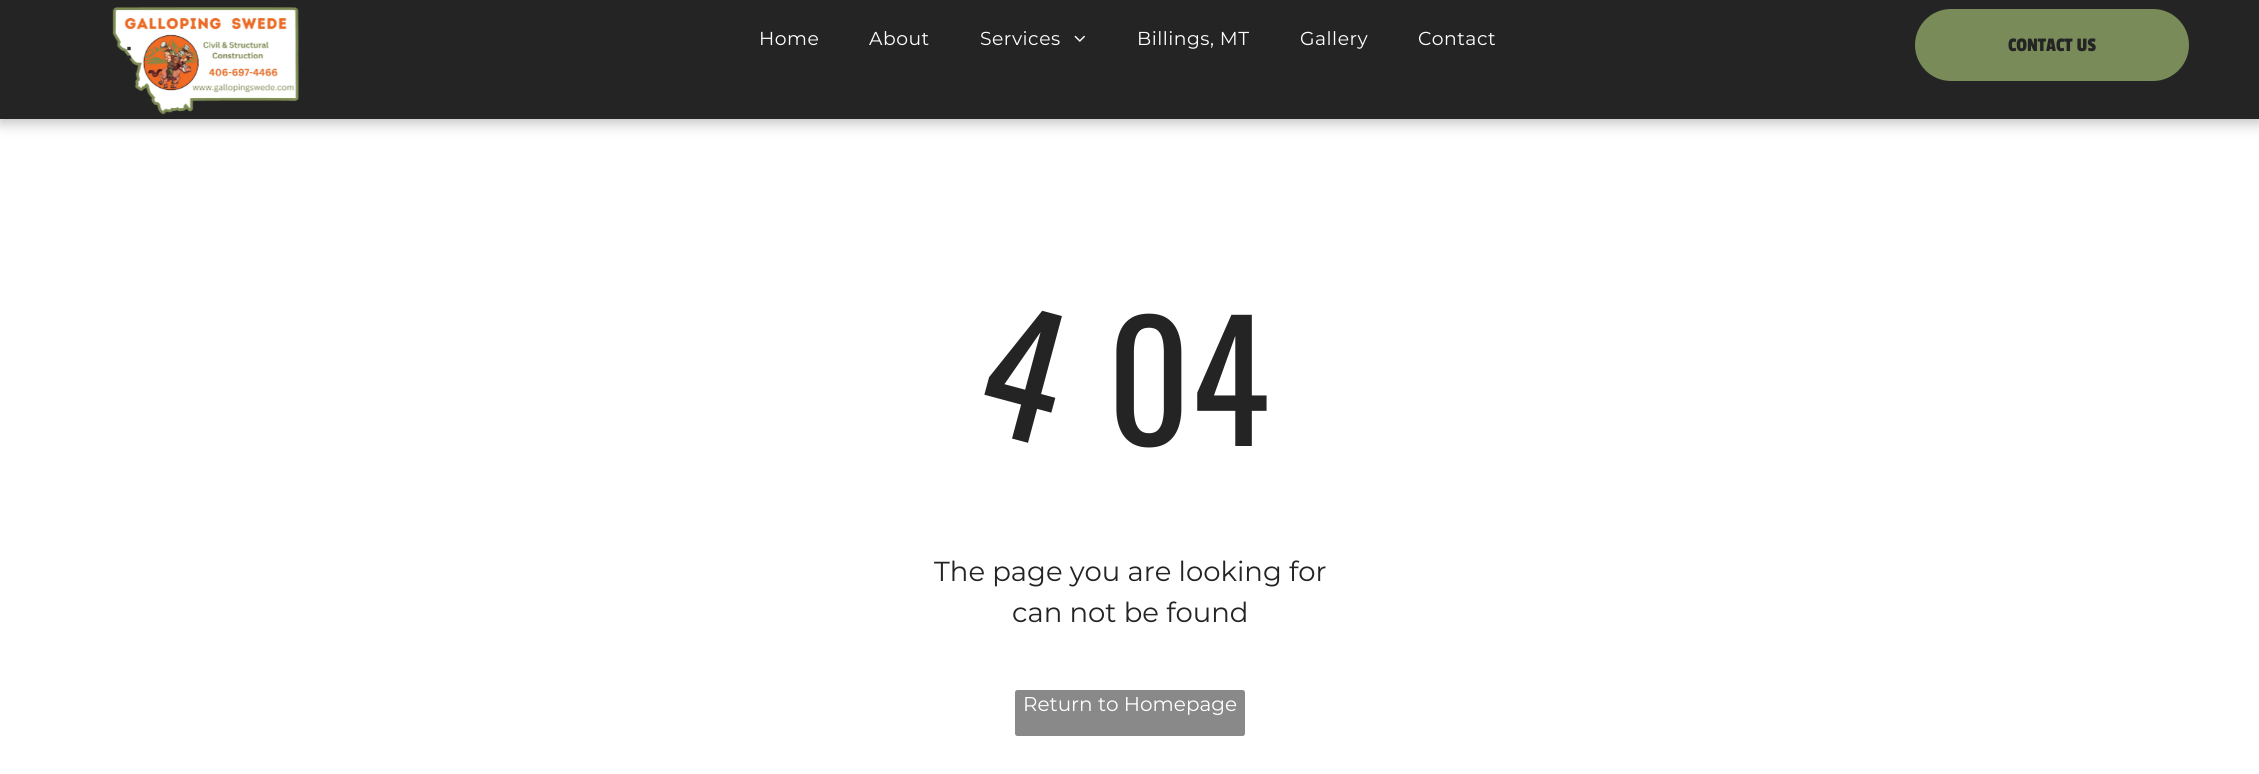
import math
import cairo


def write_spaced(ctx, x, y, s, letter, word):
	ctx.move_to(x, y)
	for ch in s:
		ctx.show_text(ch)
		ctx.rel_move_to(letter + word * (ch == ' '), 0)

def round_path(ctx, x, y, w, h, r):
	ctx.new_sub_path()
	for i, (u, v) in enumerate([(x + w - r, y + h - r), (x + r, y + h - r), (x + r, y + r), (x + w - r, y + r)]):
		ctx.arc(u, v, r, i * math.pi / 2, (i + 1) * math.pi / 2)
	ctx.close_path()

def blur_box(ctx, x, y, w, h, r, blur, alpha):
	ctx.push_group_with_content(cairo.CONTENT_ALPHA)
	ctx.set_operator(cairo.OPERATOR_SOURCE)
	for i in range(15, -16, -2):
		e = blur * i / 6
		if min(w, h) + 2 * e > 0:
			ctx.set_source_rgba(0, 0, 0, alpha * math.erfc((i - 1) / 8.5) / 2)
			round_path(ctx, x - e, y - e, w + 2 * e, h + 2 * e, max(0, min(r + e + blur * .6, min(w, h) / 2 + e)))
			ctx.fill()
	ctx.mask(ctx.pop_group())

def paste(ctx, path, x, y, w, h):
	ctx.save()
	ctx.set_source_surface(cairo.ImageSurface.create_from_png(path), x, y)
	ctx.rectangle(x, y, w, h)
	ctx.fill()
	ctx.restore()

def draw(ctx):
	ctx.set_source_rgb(1, 1, 1)
	ctx.paint()
	ctx.set_source_rgb(0, 0, 0)
	blur_box(ctx, 0, 4, 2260, 119, 0, 7, 0.25)
	ctx.set_source_rgb(0.141, 0.141, 0.141)
	ctx.rectangle(0, 0, 2259, 119)
	ctx.fill()
	paste(ctx, 'media/1.png', 112, 7, 187, 108)
	ctx.select_font_face('Liberation Sans', cairo.FONT_SLANT_NORMAL, cairo.FONT_WEIGHT_BOLD)
	ctx.set_font_size(24)
	ctx.set_source_rgb(0.173, 0.173, 0.169)
	ctx.move_to(125, 59)
	ctx.show_text(':')
	ctx.select_font_face('Montserrat')
	ctx.set_font_size(18.75)
	ctx.set_source_rgb(1, 1, 1)
	for x, y, s in [
		(759, 45, 'Home'),
		(869, 45, 'About'),
		(980, 45, 'Services'),
	]:
		write_spaced(ctx, x, y, s, 0.5, 0)
	paste(ctx, 'media/2.png', 1074, 35, 11, 7)
	for x, y, s in [
		(1137, 45, 'Billings, MT'),
		(1300, 45, 'Gallery'),
		(1418, 45, 'Contact'),
	]:
		write_spaced(ctx, x, y, s, 0.5, 0)
	ctx.set_source_rgb(0.471, 0.545, 0.349)
	round_path(ctx, 1915, 9, 274, 72, 36)
	ctx.fill()
	ctx.select_font_face('Passion One')
	ctx.set_font_size(20)
	ctx.set_source_rgb(0.141, 0.141, 0.141)
	ctx.move_to(2008, 51)
	ctx.show_text('CONTACT US')
	ctx.select_font_face('Oswald')
	ctx.set_font_size(162)
	ctx.save()
	ctx.translate(969, 427)
	ctx.rotate(15 * math.pi / 180)
	ctx.move_to(0, 0)
	ctx.show_text('4')
	ctx.restore()
	ctx.move_to(1107, 446)
	ctx.show_text('04')
	ctx.select_font_face('Montserrat')
	ctx.set_font_size(27.5)
	ctx.move_to(934, 581)
	ctx.show_text('The page you are looking for')
	ctx.move_to(1012, 622)
	ctx.show_text('can not be found')
	ctx.set_source_rgb(0.537, 0.537, 0.537)
	round_path(ctx, 1015, 690, 230, 46, 2.5)
	ctx.fill()
	ctx.set_font_size(20)
	ctx.set_source_rgb(1, 1, 1)
	ctx.move_to(1023, 711)
	ctx.show_text('Return to Homepage')


surface = cairo.ImageSurface(cairo.FORMAT_RGB24, 2259, 774)
ctx = cairo.Context(surface)
options = cairo.FontOptions()
options.set_hint_metrics(cairo.HINT_METRICS_OFF)
options.set_hint_style(cairo.HINT_STYLE_NONE)
ctx.set_font_options(options)
ctx.set_miter_limit(4)
draw(ctx)
surface.write_to_png('image.png')
